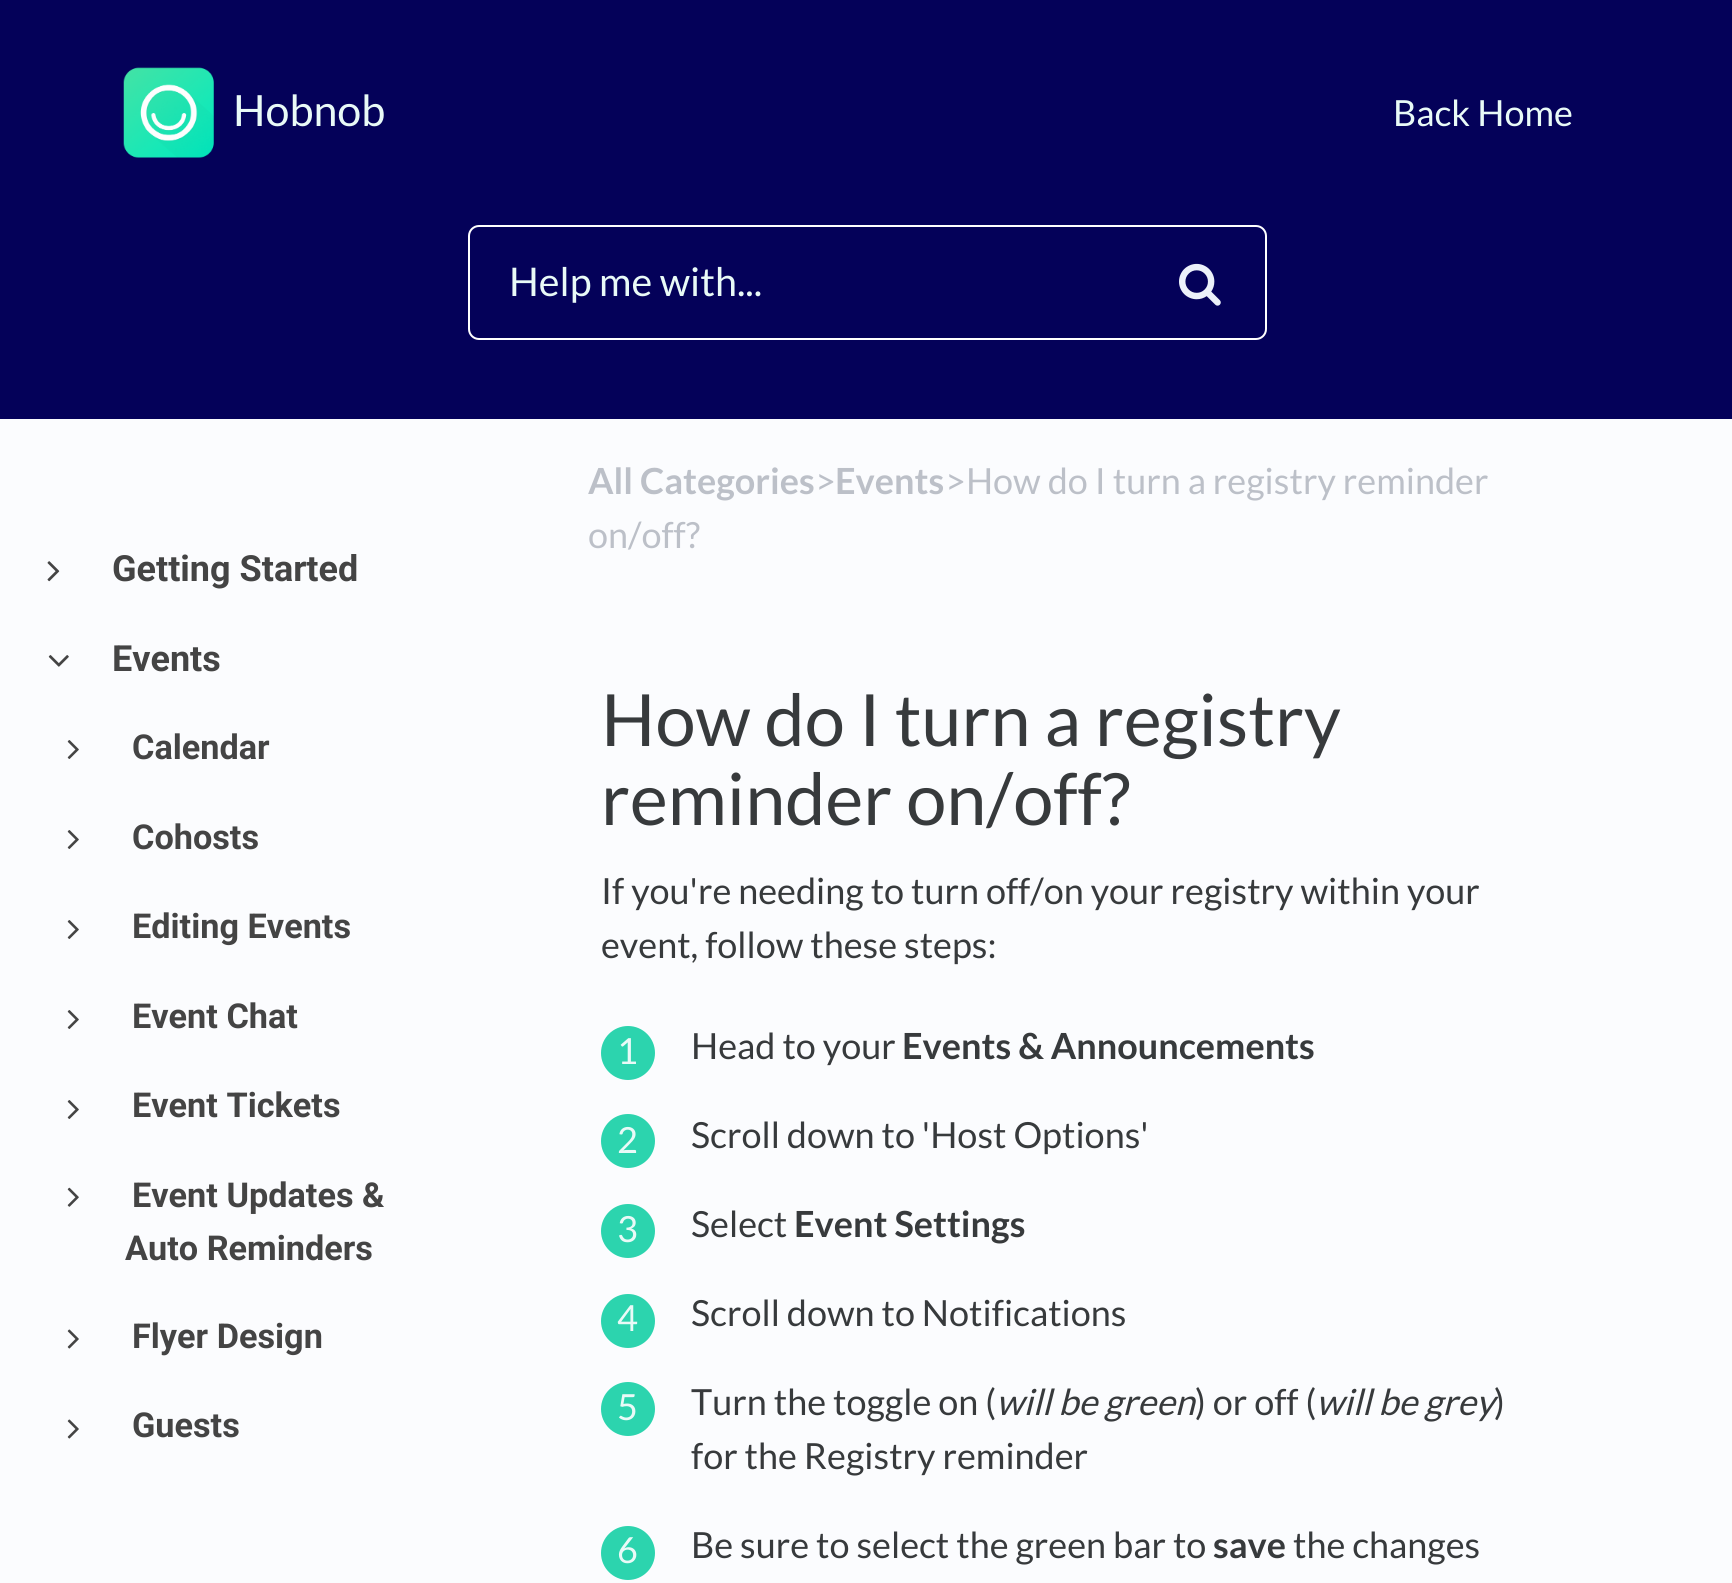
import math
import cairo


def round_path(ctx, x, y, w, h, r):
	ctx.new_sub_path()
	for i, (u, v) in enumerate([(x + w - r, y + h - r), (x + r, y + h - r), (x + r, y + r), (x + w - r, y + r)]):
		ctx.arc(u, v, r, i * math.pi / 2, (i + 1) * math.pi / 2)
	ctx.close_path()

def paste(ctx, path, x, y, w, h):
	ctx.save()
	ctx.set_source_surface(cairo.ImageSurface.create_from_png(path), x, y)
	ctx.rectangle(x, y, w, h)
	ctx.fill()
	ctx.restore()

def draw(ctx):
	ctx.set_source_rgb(0.984, 0.988, 0.996)
	ctx.paint()
	ctx.set_source_rgb(0.016, 0.004, 0.349)
	ctx.rectangle(0, 0, 1732, 419)
	ctx.fill()
	paste(ctx, 'media/1.png', 123, 67, 91, 91)
	ctx.select_font_face('Lato')
	ctx.set_font_size(43)
	ctx.set_source_rgb(0.914, 0.98, 0.965)
	ctx.move_to(233, 126)
	ctx.show_text('Hobnob')
	ctx.set_font_size(36)
	ctx.move_to(1393, 126)
	ctx.show_text('Back Home')
	round_path(ctx, 469, 226, 797, 113, 10)
	ctx.set_source_rgb(1, 1, 1)
	ctx.stroke()
	ctx.set_font_size(39.5)
	ctx.set_source_rgb(0.914, 0.98, 0.965)
	ctx.move_to(509, 296)
	ctx.show_text('Help me with...')
	paste(ctx, 'media/2.png', 1179, 263, 42, 43)
	paste(ctx, 'media/3.png', 47, 561, 13, 21)
	ctx.select_font_face('Roboto', cairo.FONT_SLANT_NORMAL, cairo.FONT_WEIGHT_BOLD)
	ctx.set_font_size(36)
	ctx.set_source_rgb(0.267, 0.267, 0.267)
	ctx.move_to(112, 581)
	ctx.show_text('Getting Started')
	paste(ctx, 'media/4.png', 48, 655, 21, 12)
	ctx.move_to(112, 671)
	ctx.show_text('Events')
	paste(ctx, 'media/5.png', 67, 740, 12, 19)
	ctx.set_font_size(34.25)
	ctx.move_to(132, 759)
	ctx.show_text('Calendar')
	paste(ctx, 'media/5.png', 67, 830, 12, 19)
	ctx.move_to(132, 849)
	ctx.show_text('Cohosts')
	paste(ctx, 'media/5.png', 67, 920, 12, 19)
	ctx.move_to(132, 938)
	ctx.show_text('Editing Events')
	paste(ctx, 'media/5.png', 67, 1010, 12, 19)
	ctx.move_to(132, 1028)
	ctx.show_text('Event Chat')
	paste(ctx, 'media/5.png', 67, 1100, 12, 19)
	ctx.move_to(132, 1117)
	ctx.show_text('Event Tickets')
	paste(ctx, 'media/6.png', 67, 1187, 12, 20)
	ctx.move_to(132, 1207)
	ctx.show_text('Event Updates &')
	ctx.move_to(125, 1260)
	ctx.show_text('Auto Reminders')
	paste(ctx, 'media/7.png', 67, 1329, 12, 20)
	ctx.move_to(132, 1348)
	ctx.show_text('Flyer Design')
	paste(ctx, 'media/7.png', 67, 1419, 12, 20)
	ctx.move_to(132, 1437)
	ctx.show_text('Guests')
	ctx.select_font_face('Lato', cairo.FONT_SLANT_NORMAL, cairo.FONT_WEIGHT_BOLD)
	ctx.set_font_size(36)
	ctx.set_source_rgb(0.737, 0.753, 0.784)
	ctx.move_to(588, 494)
	ctx.show_text('All Categories')
	ctx.select_font_face('Lato')
	ctx.move_to(815, 494)
	ctx.show_text('>')
	ctx.select_font_face('Lato', cairo.FONT_SLANT_NORMAL, cairo.FONT_WEIGHT_BOLD)
	ctx.move_to(835, 494)
	ctx.show_text('Events')
	ctx.select_font_face('Lato')
	ctx.move_to(945, 494)
	ctx.show_text('>How do I turn a registry reminder')
	ctx.move_to(588, 548)
	ctx.show_text('on/off?')
	ctx.set_font_size(72)
	ctx.set_source_rgb(0.216, 0.227, 0.235)
	ctx.move_to(601, 746)
	ctx.show_text('How do I turn a registry')
	ctx.move_to(601, 825)
	ctx.show_text('reminder on/off?')
	ctx.set_font_size(36)
	ctx.move_to(601, 904)
	ctx.show_text('If you\'re needing to turn off/on your registry within your')
	ctx.move_to(601, 958)
	ctx.show_text('event, follow these steps:')
	ctx.set_source_rgb(0.173, 0.831, 0.682)
	ctx.new_path()
	ctx.arc(628, 1053, 27, 0, 2 * math.pi)
	ctx.fill()
	ctx.set_source_rgb(0.914, 0.98, 0.965)
	ctx.move_to(617, 1064)
	ctx.show_text('1')
	ctx.set_source_rgb(0.216, 0.227, 0.235)
	ctx.move_to(691, 1059)
	ctx.show_text('Head to your')
	ctx.select_font_face('Lato', cairo.FONT_SLANT_NORMAL, cairo.FONT_WEIGHT_BOLD)
	ctx.move_to(902, 1059)
	ctx.show_text('Events & Announcements')
	ctx.set_source_rgb(0.173, 0.831, 0.682)
	ctx.new_path()
	ctx.arc(628, 1141, 27, 0, 2 * math.pi)
	ctx.fill()
	ctx.select_font_face('Lato')
	ctx.set_source_rgb(0.914, 0.98, 0.965)
	ctx.move_to(617, 1153)
	ctx.show_text('2')
	ctx.set_source_rgb(0.216, 0.227, 0.235)
	ctx.move_to(691, 1148)
	ctx.show_text('Scroll down to \'Host Options\'')
	ctx.set_source_rgb(0.173, 0.831, 0.682)
	ctx.new_path()
	ctx.arc(628, 1231, 27, 0, 2 * math.pi)
	ctx.fill()
	ctx.set_source_rgb(0.914, 0.98, 0.965)
	ctx.move_to(617, 1242)
	ctx.show_text('3')
	ctx.set_source_rgb(0.216, 0.227, 0.235)
	ctx.move_to(691, 1237)
	ctx.show_text('Select')
	ctx.select_font_face('Lato', cairo.FONT_SLANT_NORMAL, cairo.FONT_WEIGHT_BOLD)
	ctx.move_to(794, 1237)
	ctx.show_text('Event Settings')
	ctx.set_source_rgb(0.173, 0.831, 0.682)
	ctx.new_path()
	ctx.arc(628, 1321, 27, 0, 2 * math.pi)
	ctx.fill()
	ctx.select_font_face('Lato')
	ctx.set_source_rgb(0.914, 0.98, 0.965)
	ctx.move_to(617, 1331)
	ctx.show_text('4')
	ctx.set_source_rgb(0.216, 0.227, 0.235)
	ctx.move_to(691, 1326)
	ctx.show_text('Scroll down to Notifications')
	ctx.move_to(691, 1415)
	ctx.show_text('Turn the toggle on (')
	ctx.select_font_face('Lato', cairo.FONT_SLANT_ITALIC)
	ctx.move_to(996, 1415)
	ctx.show_text('will be green')
	ctx.select_font_face('Lato')
	ctx.move_to(1195, 1415)
	ctx.show_text(') or off (')
	ctx.select_font_face('Lato', cairo.FONT_SLANT_ITALIC)
	ctx.move_to(1316, 1415)
	ctx.show_text('will be grey')
	ctx.select_font_face('Lato')
	ctx.move_to(1494, 1415)
	ctx.show_text(')')
	ctx.set_source_rgb(0.173, 0.831, 0.682)
	ctx.new_path()
	ctx.arc(628, 1409, 27, 0, 2 * math.pi)
	ctx.fill()
	ctx.set_source_rgb(0.914, 0.98, 0.965)
	ctx.move_to(617, 1420)
	ctx.show_text('5')
	ctx.set_source_rgb(0.216, 0.227, 0.235)
	ctx.move_to(691, 1469)
	ctx.show_text('for the Registry reminder')
	ctx.set_source_rgb(0.173, 0.831, 0.682)
	ctx.new_path()
	ctx.arc(628, 1553, 27, 0, 2 * math.pi)
	ctx.fill()
	ctx.set_source_rgb(0.914, 0.98, 0.965)
	ctx.move_to(617, 1563)
	ctx.show_text('6')
	ctx.set_source_rgb(0.216, 0.227, 0.235)
	ctx.move_to(691, 1558)
	ctx.show_text('Be sure to select the green bar to')
	ctx.select_font_face('Lato', cairo.FONT_SLANT_NORMAL, cairo.FONT_WEIGHT_BOLD)
	ctx.move_to(1213, 1558)
	ctx.show_text('save')
	ctx.select_font_face('Lato')
	ctx.move_to(1293, 1558)
	ctx.show_text('the changes')


surface = cairo.ImageSurface(cairo.FORMAT_RGB24, 1732, 1583)
ctx = cairo.Context(surface)
options = cairo.FontOptions()
options.set_hint_metrics(cairo.HINT_METRICS_OFF)
options.set_hint_style(cairo.HINT_STYLE_NONE)
ctx.set_font_options(options)
ctx.set_miter_limit(4)
draw(ctx)
surface.write_to_png('image.png')
